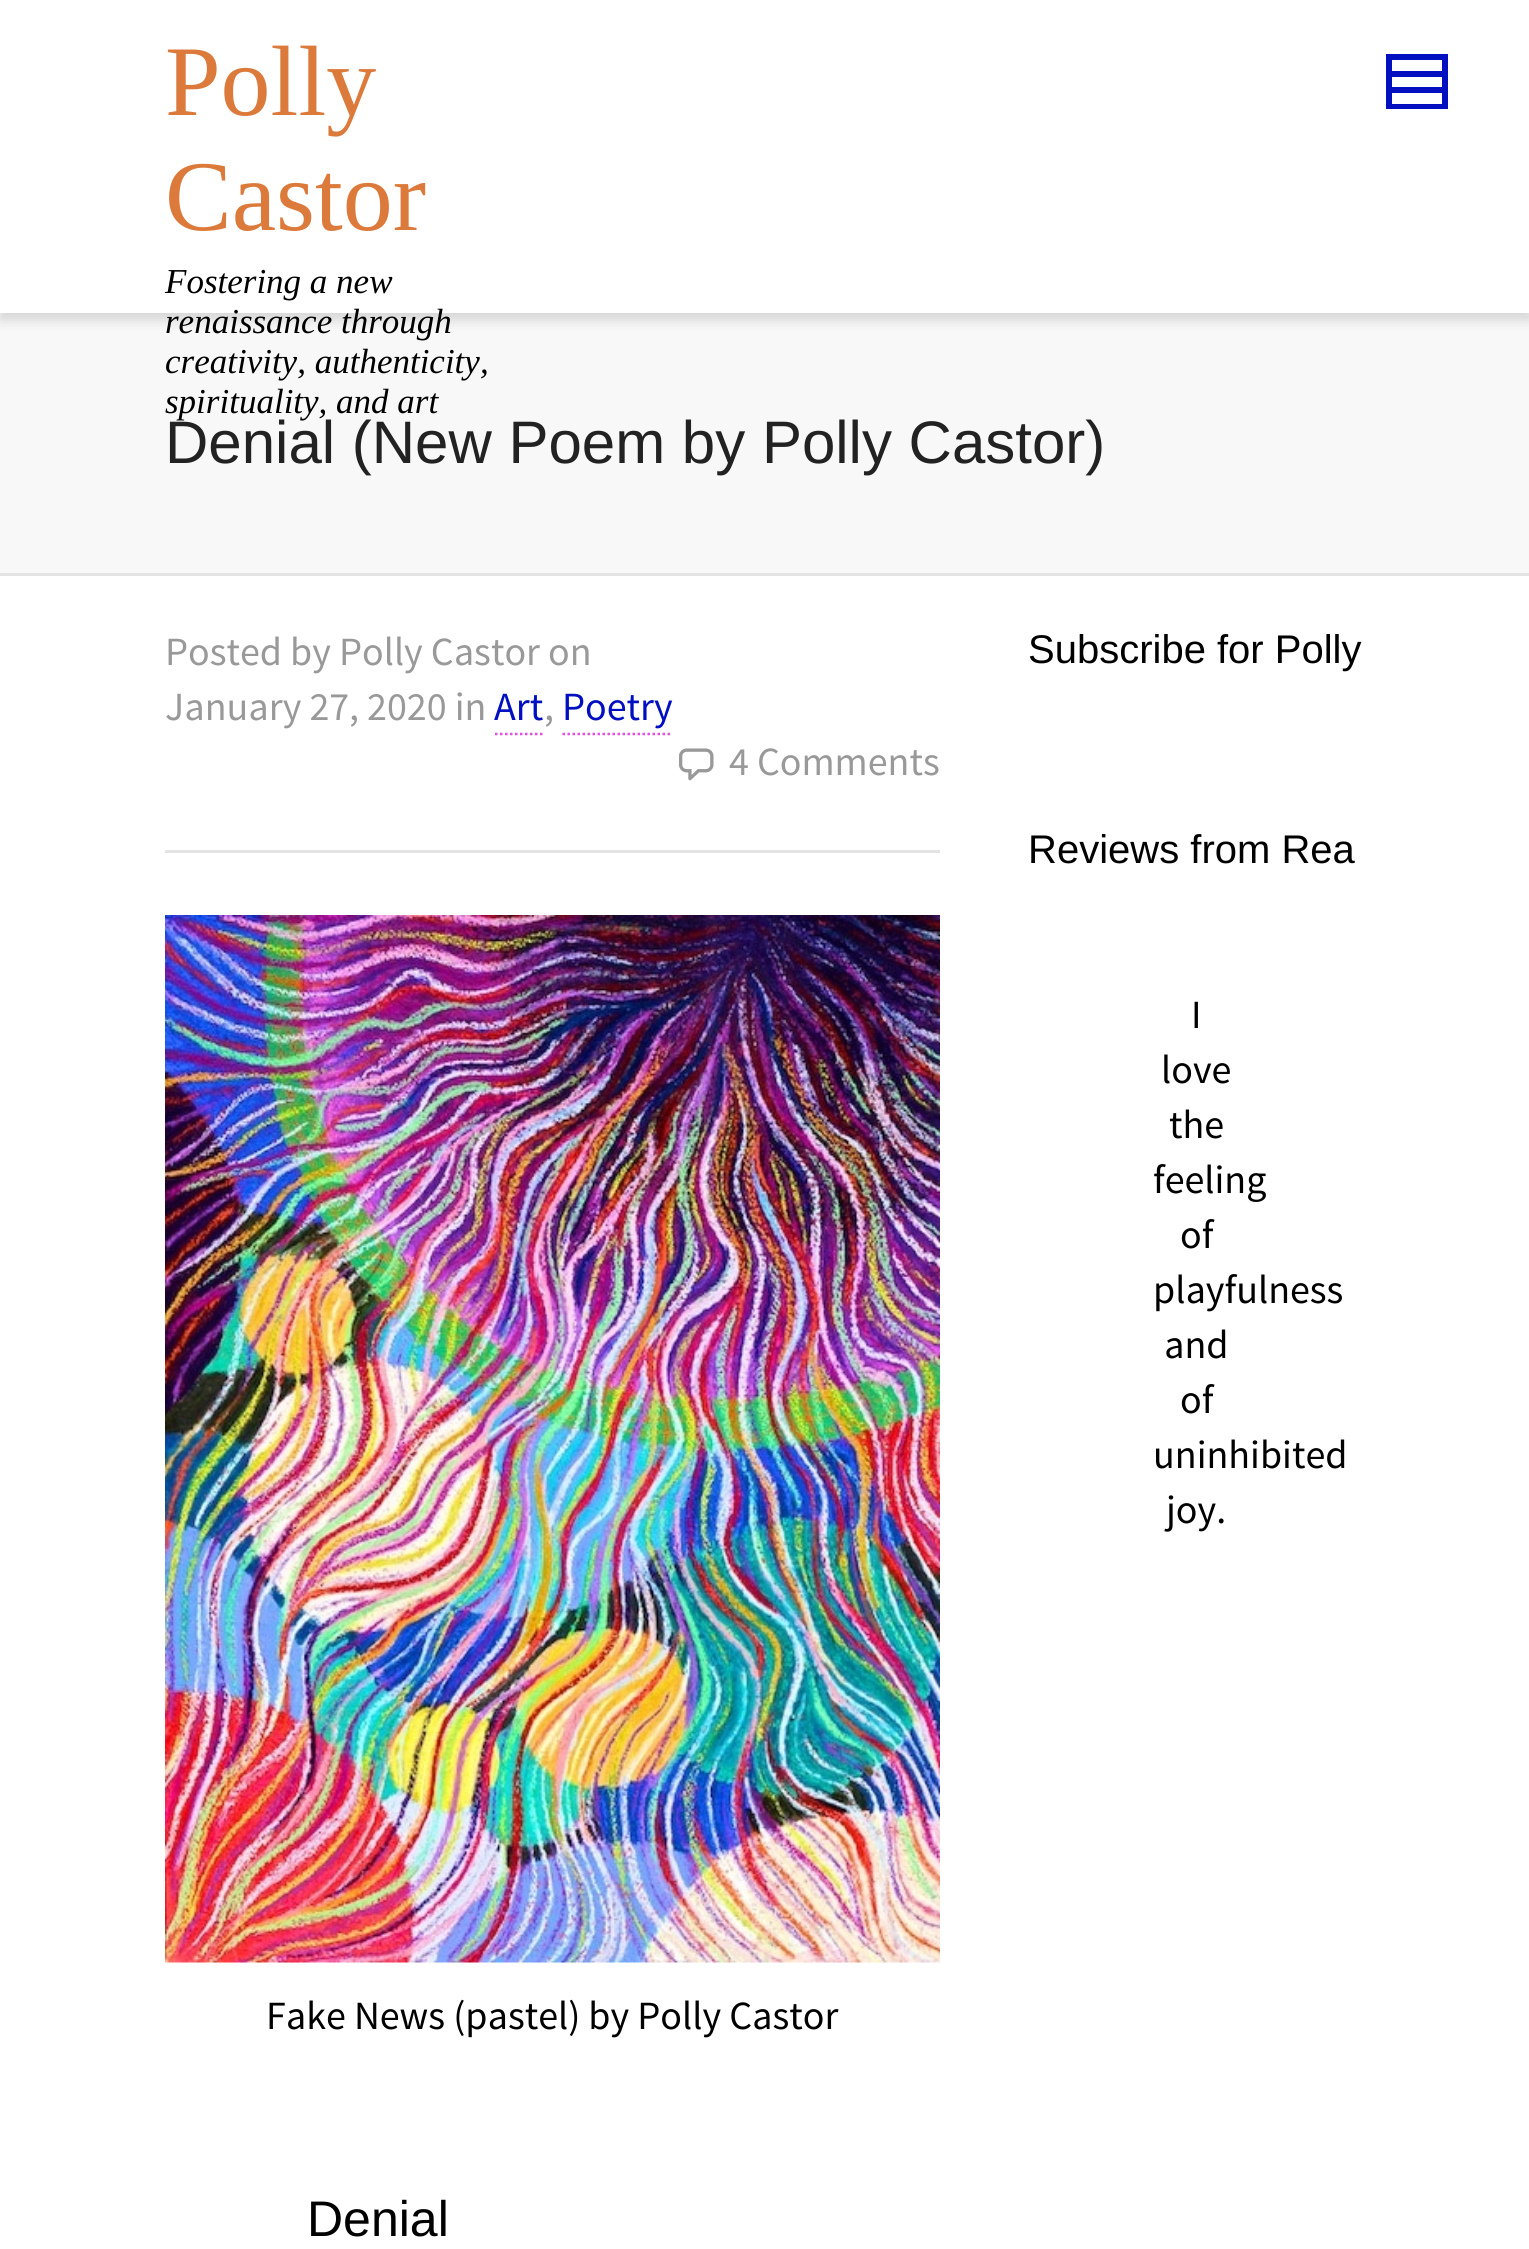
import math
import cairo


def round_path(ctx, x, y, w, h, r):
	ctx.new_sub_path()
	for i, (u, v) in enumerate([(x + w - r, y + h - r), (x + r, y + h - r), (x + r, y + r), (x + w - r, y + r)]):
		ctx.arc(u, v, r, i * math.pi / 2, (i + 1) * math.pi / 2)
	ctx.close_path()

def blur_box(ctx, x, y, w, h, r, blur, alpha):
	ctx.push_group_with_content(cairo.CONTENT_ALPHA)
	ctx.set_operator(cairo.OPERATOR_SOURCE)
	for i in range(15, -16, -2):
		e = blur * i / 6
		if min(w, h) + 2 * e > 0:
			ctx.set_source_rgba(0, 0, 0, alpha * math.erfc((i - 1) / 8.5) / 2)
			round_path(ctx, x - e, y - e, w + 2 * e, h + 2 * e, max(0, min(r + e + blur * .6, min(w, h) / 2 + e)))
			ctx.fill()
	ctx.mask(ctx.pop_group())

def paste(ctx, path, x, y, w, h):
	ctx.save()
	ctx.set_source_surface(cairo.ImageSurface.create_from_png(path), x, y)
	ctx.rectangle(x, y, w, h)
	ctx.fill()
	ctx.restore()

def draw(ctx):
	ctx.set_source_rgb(1, 1, 1)
	ctx.paint()
	ctx.set_source_rgb(0.969, 0.969, 0.969)
	ctx.rectangle(0, 313, 1529, 260)
	ctx.fill()
	ctx.set_source_rgb(0, 0, 0)
	blur_box(ctx, 0, 8, 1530, 312, 0, 6, 0.1)
	blur_box(ctx, 0, 8, 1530, 312, 0, 6, 0.05)
	ctx.set_source_rgb(1, 1, 1)
	ctx.rectangle(0, 0, 1529, 313)
	ctx.fill()
	ctx.select_font_face('Liberation Serif')
	ctx.set_font_size(100)
	ctx.set_source_rgb(0.863, 0.478, 0.231)
	ctx.move_to(165, 115)
	ctx.show_text('Polly')
	ctx.move_to(165, 230)
	ctx.show_text('Castor')
	ctx.select_font_face('Liberation Serif', cairo.FONT_SLANT_ITALIC)
	ctx.set_font_size(35)
	ctx.set_source_rgb(0, 0, 0)
	for x, y, s in [
		(165, 293, 'Fostering a new'),
		(165, 333, 'renaissance through'),
		(165, 373, 'creativity, authenticity,'),
		(165, 413, 'spirituality, and art'),
	]:
		ctx.move_to(x, y)
		ctx.show_text(s)
	ctx.set_source_rgb(0, 0.063, 0.757)
	ctx.new_path()
	ctx.move_to(1386, 54)
	ctx.line_to(1448, 54)
	ctx.line_to(1448, 109)
	ctx.line_to(1386, 109)
	ctx.close_path()
	ctx.move_to(1442, 60)
	ctx.line_to(1392, 60)
	ctx.line_to(1392, 71)
	ctx.line_to(1442, 71)
	ctx.close_path()
	ctx.move_to(1442, 77)
	ctx.line_to(1392, 77)
	ctx.line_to(1392, 87)
	ctx.line_to(1442, 87)
	ctx.close_path()
	ctx.move_to(1392, 104)
	ctx.line_to(1442, 104)
	ctx.line_to(1442, 93)
	ctx.line_to(1392, 93)
	ctx.close_path()
	ctx.fill()
	ctx.set_source_rgb(0.894, 0.894, 0.894)
	ctx.rectangle(0, 573, 1529, 3)
	ctx.fill()
	ctx.select_font_face('Liberation Sans')
	ctx.set_font_size(60)
	ctx.set_source_rgb(0.133, 0.133, 0.133)
	ctx.move_to(165, 463)
	ctx.show_text('Denial (New Poem by Polly Castor)')
	ctx.set_source_rgb(0.894, 0.894, 0.894)
	ctx.rectangle(165, 850, 775, 3)
	ctx.fill()
	ctx.select_font_face('Source Sans Pro')
	ctx.set_font_size(40)
	ctx.set_source_rgb(0.6, 0.6, 0.6)
	ctx.move_to(165, 665)
	ctx.show_text('Posted by Polly Castor on')
	ctx.move_to(165, 720)
	ctx.show_text('January 27, 2020 in')
	ctx.set_source_rgb(0, 0.063, 0.757)
	ctx.move_to(494, 720)
	ctx.show_text('Art')
	ctx.new_path()
	ctx.move_to(495, 734)
	ctx.line_to(542.5, 734)
	ctx.set_source_rgb(0.886, 0.314, 0.886)
	ctx.set_line_width(2.5)
	ctx.set_dash([2.5, 2.5])
	ctx.stroke()
	ctx.set_source_rgb(0.6, 0.6, 0.6)
	ctx.move_to(544, 720)
	ctx.show_text(',')
	ctx.set_source_rgb(0, 0.063, 0.757)
	ctx.move_to(562, 720)
	ctx.show_text('Poetry')
	ctx.new_path()
	ctx.move_to(562.5, 734)
	ctx.line_to(672.5, 734)
	ctx.set_source_rgb(0.886, 0.314, 0.886)
	ctx.stroke()
	paste(ctx, 'media/1.png', 679, 748, 35, 33)
	ctx.set_source_rgb(0.6, 0.6, 0.6)
	ctx.move_to(729, 775)
	ctx.show_text('4 Comments')
	paste(ctx, 'media/2.png', 165, 915, 775, 1048)
	ctx.set_source_rgb(0, 0, 0)
	ctx.move_to(266, 2029)
	ctx.show_text('Fake News (pastel) by Polly Castor')
	ctx.select_font_face('Liberation Sans')
	ctx.set_font_size(50)
	ctx.move_to(307, 2236)
	ctx.show_text('Denial')
	ctx.set_font_size(40)
	ctx.move_to(1028, 663)
	ctx.show_text('Subscribe for Polly')
	ctx.move_to(1028, 863)
	ctx.show_text('Reviews from Rea')
	ctx.select_font_face('Source Sans Pro')
	for x, y, s in [
		(1191, 1028, 'I'),
		(1161, 1083, 'love'),
		(1169, 1138, 'the'),
		(1153, 1193, 'feeling'),
		(1180, 1248, 'of'),
		(1153, 1303, 'playfulness'),
		(1164, 1358, 'and'),
		(1180, 1413, 'of'),
		(1153, 1468, 'uninhibited'),
		(1166, 1523, 'joy.'),
	]:
		ctx.move_to(x, y)
		ctx.show_text(s)


surface = cairo.ImageSurface(cairo.FORMAT_RGB24, 1529, 2249)
ctx = cairo.Context(surface)
options = cairo.FontOptions()
options.set_hint_metrics(cairo.HINT_METRICS_OFF)
options.set_hint_style(cairo.HINT_STYLE_NONE)
ctx.set_font_options(options)
ctx.set_miter_limit(4)
draw(ctx)
surface.write_to_png('image.png')
